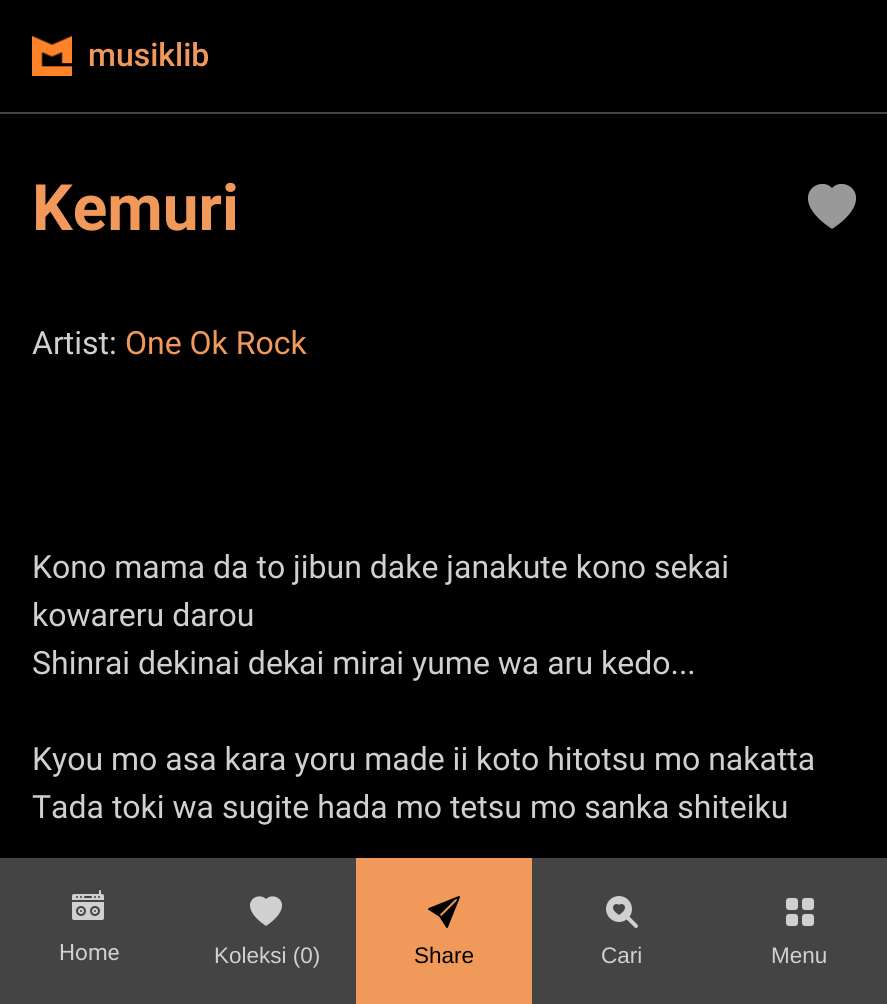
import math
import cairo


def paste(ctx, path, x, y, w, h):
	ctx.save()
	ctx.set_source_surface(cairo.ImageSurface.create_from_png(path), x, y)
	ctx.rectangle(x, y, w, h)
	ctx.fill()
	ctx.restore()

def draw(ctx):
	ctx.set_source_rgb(0, 0, 0)
	ctx.paint()
	ctx.set_source_rgb(0.267, 0.267, 0.267)
	ctx.rectangle(0, 112, 887, 2)
	ctx.fill()
	paste(ctx, 'media/1.png', 32, 36, 40, 40)
	ctx.select_font_face('Roboto Medium')
	ctx.set_font_size(32)
	ctx.set_source_rgb(0.945, 0.6, 0.357)
	ctx.move_to(88, 66)
	ctx.show_text('musiklib')
	ctx.select_font_face('Roboto', cairo.FONT_SLANT_NORMAL, cairo.FONT_WEIGHT_BOLD)
	ctx.set_font_size(64)
	ctx.move_to(32, 230)
	ctx.show_text('Kemuri')
	ctx.save()
	ctx.rectangle(808, 184, 48, 48)
	ctx.clip()
	ctx.set_source_rgb(0.6, 0.6, 0.6)
	ctx.set_fill_rule(cairo.FILL_RULE_EVEN_ODD)
	ctx.new_path()
	ctx.move_to(832, 188)
	ctx.curve_to(845, 174, 879, 198, 832, 229)
	ctx.curve_to(785, 198, 819, 174, 832, 188)
	ctx.fill()
	ctx.restore()
	ctx.select_font_face('Roboto')
	ctx.set_font_size(32)
	ctx.set_source_rgb(0.816, 0.816, 0.816)
	ctx.move_to(32, 354)
	ctx.show_text('Artist:')
	ctx.set_source_rgb(0.945, 0.6, 0.357)
	ctx.move_to(125, 354)
	ctx.show_text('One Ok Rock')
	ctx.set_source_rgb(0.816, 0.816, 0.816)
	for x, y, s in [
		(32, 578, 'Kono mama da to jibun dake janakute kono sekai'),
		(32, 626, 'kowareru darou'),
		(32, 674, 'Shinrai dekinai dekai mirai yume wa aru kedo...'),
		(32, 770, 'Kyou mo asa kara yoru made ii koto hitotsu mo nakatta'),
		(32, 818, 'Tada toki wa sugite hada mo tetsu mo sanka shiteiku'),
	]:
		ctx.move_to(x, y)
		ctx.show_text(s)
	ctx.set_source_rgb(0.267, 0.267, 0.267)
	ctx.rectangle(0, 858, 356, 146)
	ctx.fill()
	paste(ctx, 'media/2.png', 72, 890, 32, 30)
	ctx.set_font_size(22.5)
	ctx.set_source_rgb(0.816, 0.816, 0.816)
	ctx.move_to(59, 960)
	ctx.show_text('Home')
	ctx.set_fill_rule(cairo.FILL_RULE_EVEN_ODD)
	ctx.new_path()
	ctx.move_to(266, 899)
	ctx.curve_to(275, 890, 297, 905, 266, 926)
	ctx.curve_to(235, 905, 257, 890, 266, 899)
	ctx.fill()
	ctx.select_font_face('Liberation Sans')
	ctx.move_to(214, 963)
	ctx.show_text('Koleksi (0)')
	ctx.set_source_rgb(0.945, 0.6, 0.357)
	ctx.rectangle(356, 858, 176, 146)
	ctx.fill()
	paste(ctx, 'media/3.png', 428, 896, 32, 32)
	ctx.set_source_rgb(0, 0, 0)
	ctx.move_to(414, 963)
	ctx.show_text('Share')
	ctx.set_source_rgb(0.267, 0.267, 0.267)
	ctx.rectangle(532, 858, 355, 146)
	ctx.fill()
	paste(ctx, 'media/4.png', 606, 896, 32, 32)
	ctx.set_source_rgb(0.816, 0.816, 0.816)
	ctx.move_to(601, 963)
	ctx.show_text('Cari')
	paste(ctx, 'media/5.png', 786, 898, 28, 28)
	ctx.move_to(771, 963)
	ctx.show_text('Menu')


surface = cairo.ImageSurface(cairo.FORMAT_RGB24, 887, 1004)
ctx = cairo.Context(surface)
options = cairo.FontOptions()
options.set_hint_metrics(cairo.HINT_METRICS_OFF)
options.set_hint_style(cairo.HINT_STYLE_NONE)
ctx.set_font_options(options)
ctx.set_miter_limit(4)
draw(ctx)
surface.write_to_png('image.png')
